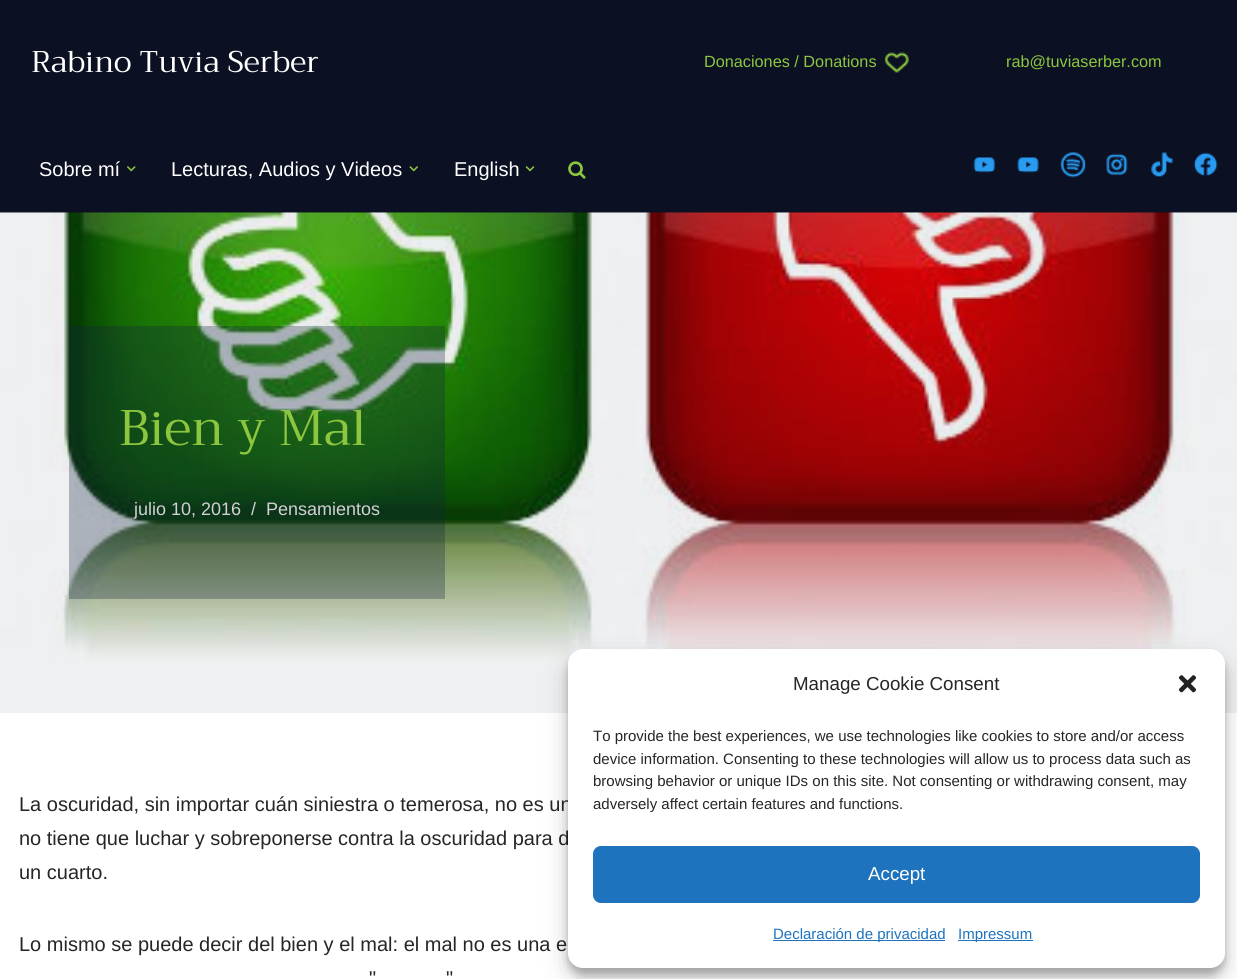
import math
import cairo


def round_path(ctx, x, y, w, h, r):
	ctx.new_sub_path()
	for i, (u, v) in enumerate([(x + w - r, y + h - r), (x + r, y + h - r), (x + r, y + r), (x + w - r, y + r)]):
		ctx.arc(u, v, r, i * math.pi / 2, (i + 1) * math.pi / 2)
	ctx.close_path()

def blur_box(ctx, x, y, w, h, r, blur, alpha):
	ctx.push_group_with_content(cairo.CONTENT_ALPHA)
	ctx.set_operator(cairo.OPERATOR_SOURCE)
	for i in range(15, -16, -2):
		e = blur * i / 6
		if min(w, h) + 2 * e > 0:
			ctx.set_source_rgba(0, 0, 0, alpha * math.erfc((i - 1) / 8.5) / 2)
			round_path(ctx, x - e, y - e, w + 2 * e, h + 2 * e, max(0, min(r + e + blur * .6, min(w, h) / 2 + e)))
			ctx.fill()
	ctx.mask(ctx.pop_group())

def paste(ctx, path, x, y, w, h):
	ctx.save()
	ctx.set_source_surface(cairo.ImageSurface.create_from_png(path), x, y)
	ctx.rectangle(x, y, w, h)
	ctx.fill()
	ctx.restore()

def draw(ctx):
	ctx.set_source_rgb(1, 1, 1)
	ctx.paint()
	ctx.set_source_rgb(0.043, 0.063, 0.137)
	ctx.rectangle(0, 0, 1237, 213)
	ctx.fill()
	ctx.select_font_face('Trirong')
	ctx.set_font_size(30)
	ctx.set_source_rgb(1, 1, 1)
	ctx.move_to(31, 72)
	ctx.show_text('Rabino Tuvia Serber')
	ctx.select_font_face('Liberation Sans')
	ctx.set_font_size(16.25)
	ctx.set_source_rgb(0.549, 0.776, 0.247)
	ctx.move_to(704, 67)
	ctx.show_text('Donaciones / Donations')
	paste(ctx, 'media/1.png', 884, 52, 25, 21)
	ctx.move_to(1006, 67)
	ctx.show_text('rab@tuviaserber.com')
	ctx.set_font_size(20)
	ctx.set_source_rgb(1, 1, 1)
	ctx.move_to(39, 176)
	ctx.show_text('Sobre mí')
	paste(ctx, 'media/2.png', 127, 166, 9, 6)
	ctx.move_to(171, 176)
	ctx.show_text('Lecturas, Audios y Videos')
	paste(ctx, 'media/3.png', 409, 166, 9, 6)
	ctx.move_to(454, 176)
	ctx.show_text('English')
	paste(ctx, 'media/4.png', 525, 166, 10, 6)
	paste(ctx, 'media/5.png', 568, 161, 18, 18)
	paste(ctx, 'media/6.png', 973, 157, 23, 16)
	paste(ctx, 'media/7.png', 1017, 157, 22, 16)
	paste(ctx, 'media/8.png', 1060, 152, 26, 26)
	paste(ctx, 'media/9.png', 1106, 153, 22, 23)
	paste(ctx, 'media/10.png', 1151, 152, 22, 25)
	paste(ctx, 'media/11.png', 1193, 152, 25, 24)
	paste(ctx, 'media/12.png', 0, 212, 1237, 449)
	ctx.set_source_rgba(0.078, 0.141, 0.251, 0.07)
	ctx.rectangle(0, 213, 1237, 500)
	ctx.fill()
	ctx.set_source_rgba(0.078, 0.141, 0.251, 0.3)
	ctx.rectangle(69, 326, 376, 273)
	ctx.fill()
	ctx.select_font_face('Trirong')
	ctx.set_font_size(50)
	ctx.set_source_rgb(0.549, 0.776, 0.247)
	ctx.move_to(119, 445)
	ctx.show_text('Bien y Mal')
	ctx.select_font_face('Liberation Sans')
	ctx.set_font_size(18)
	ctx.set_source_rgb(0.82, 0.82, 0.835)
	for x, y, s in [
		(134, 515, 'julio 10, 2016'),
		(251, 515, '/'),
		(266, 515, 'Pensamientos'),
	]:
		ctx.move_to(x, y)
		ctx.show_text(s)
	ctx.set_font_size(20)
	ctx.set_source_rgb(0.153, 0.149, 0.149)
	for x, y, s in [
		(19, 811, 'La oscuridad, sin importar cuán siniestra o temerosa, no es un'),
		(19, 845, 'no tiene que luchar y sobreponerse contra la oscuridad para d'),
		(19, 879, 'un cuarto.'),
		(19, 951, 'Lo mismo se puede decir del bien y el mal: el mal no es una e'),
		(369, 985, '"'),
		(446, 985, '"'),
	]:
		ctx.move_to(x, y)
		ctx.show_text(s)
	ctx.set_source_rgb(0, 0, 0)
	blur_box(ctx, 568, 656, 657, 319, 15, 4, 0.23)
	blur_box(ctx, 568, 661, 657, 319, 15, 12.5, 0.19)
	ctx.set_source_rgb(1, 1, 1)
	round_path(ctx, 568, 649, 657, 319, 15)
	ctx.fill()
	ctx.set_font_size(18.75)
	ctx.set_source_rgb(0.153, 0.149, 0.149)
	ctx.move_to(793, 690)
	ctx.show_text('Manage Cookie Consent')
	paste(ctx, 'media/13.png', 1178, 675, 19, 18)
	ctx.set_font_size(15)
	for x, y, s in [
		(593, 741, 'To provide the best experiences, we use technologies like cookies to store and/or access'),
		(593, 764, 'device information. Consenting to these technologies will allow us to process data such as'),
		(593, 786, 'browsing behavior or unique IDs on this site. Not consenting or withdrawing consent, may'),
		(593, 809, 'adversely affect certain features and functions.'),
	]:
		ctx.move_to(x, y)
		ctx.show_text(s)
	ctx.set_source_rgb(0.118, 0.451, 0.745)
	round_path(ctx, 593.5, 846.5, 606, 56, 7.5)
	ctx.fill_preserve()
	ctx.set_line_width(1)
	ctx.stroke()
	ctx.set_font_size(18.75)
	ctx.set_source_rgb(1, 1, 1)
	ctx.move_to(868, 880)
	ctx.show_text('Accept')
	ctx.set_source_rgb(0.118, 0.451, 0.745)
	ctx.rectangle(773, 940, 172, 1)
	ctx.fill()
	ctx.set_font_size(15)
	ctx.move_to(773, 939)
	ctx.show_text('Declaración de privacidad')
	ctx.rectangle(958, 940, 75, 1)
	ctx.fill()
	ctx.move_to(958, 939)
	ctx.show_text('Impressum')


surface = cairo.ImageSurface(cairo.FORMAT_RGB24, 1237, 979)
ctx = cairo.Context(surface)
options = cairo.FontOptions()
options.set_hint_metrics(cairo.HINT_METRICS_OFF)
options.set_hint_style(cairo.HINT_STYLE_NONE)
ctx.set_font_options(options)
ctx.set_miter_limit(4)
draw(ctx)
surface.write_to_png('image.png')
